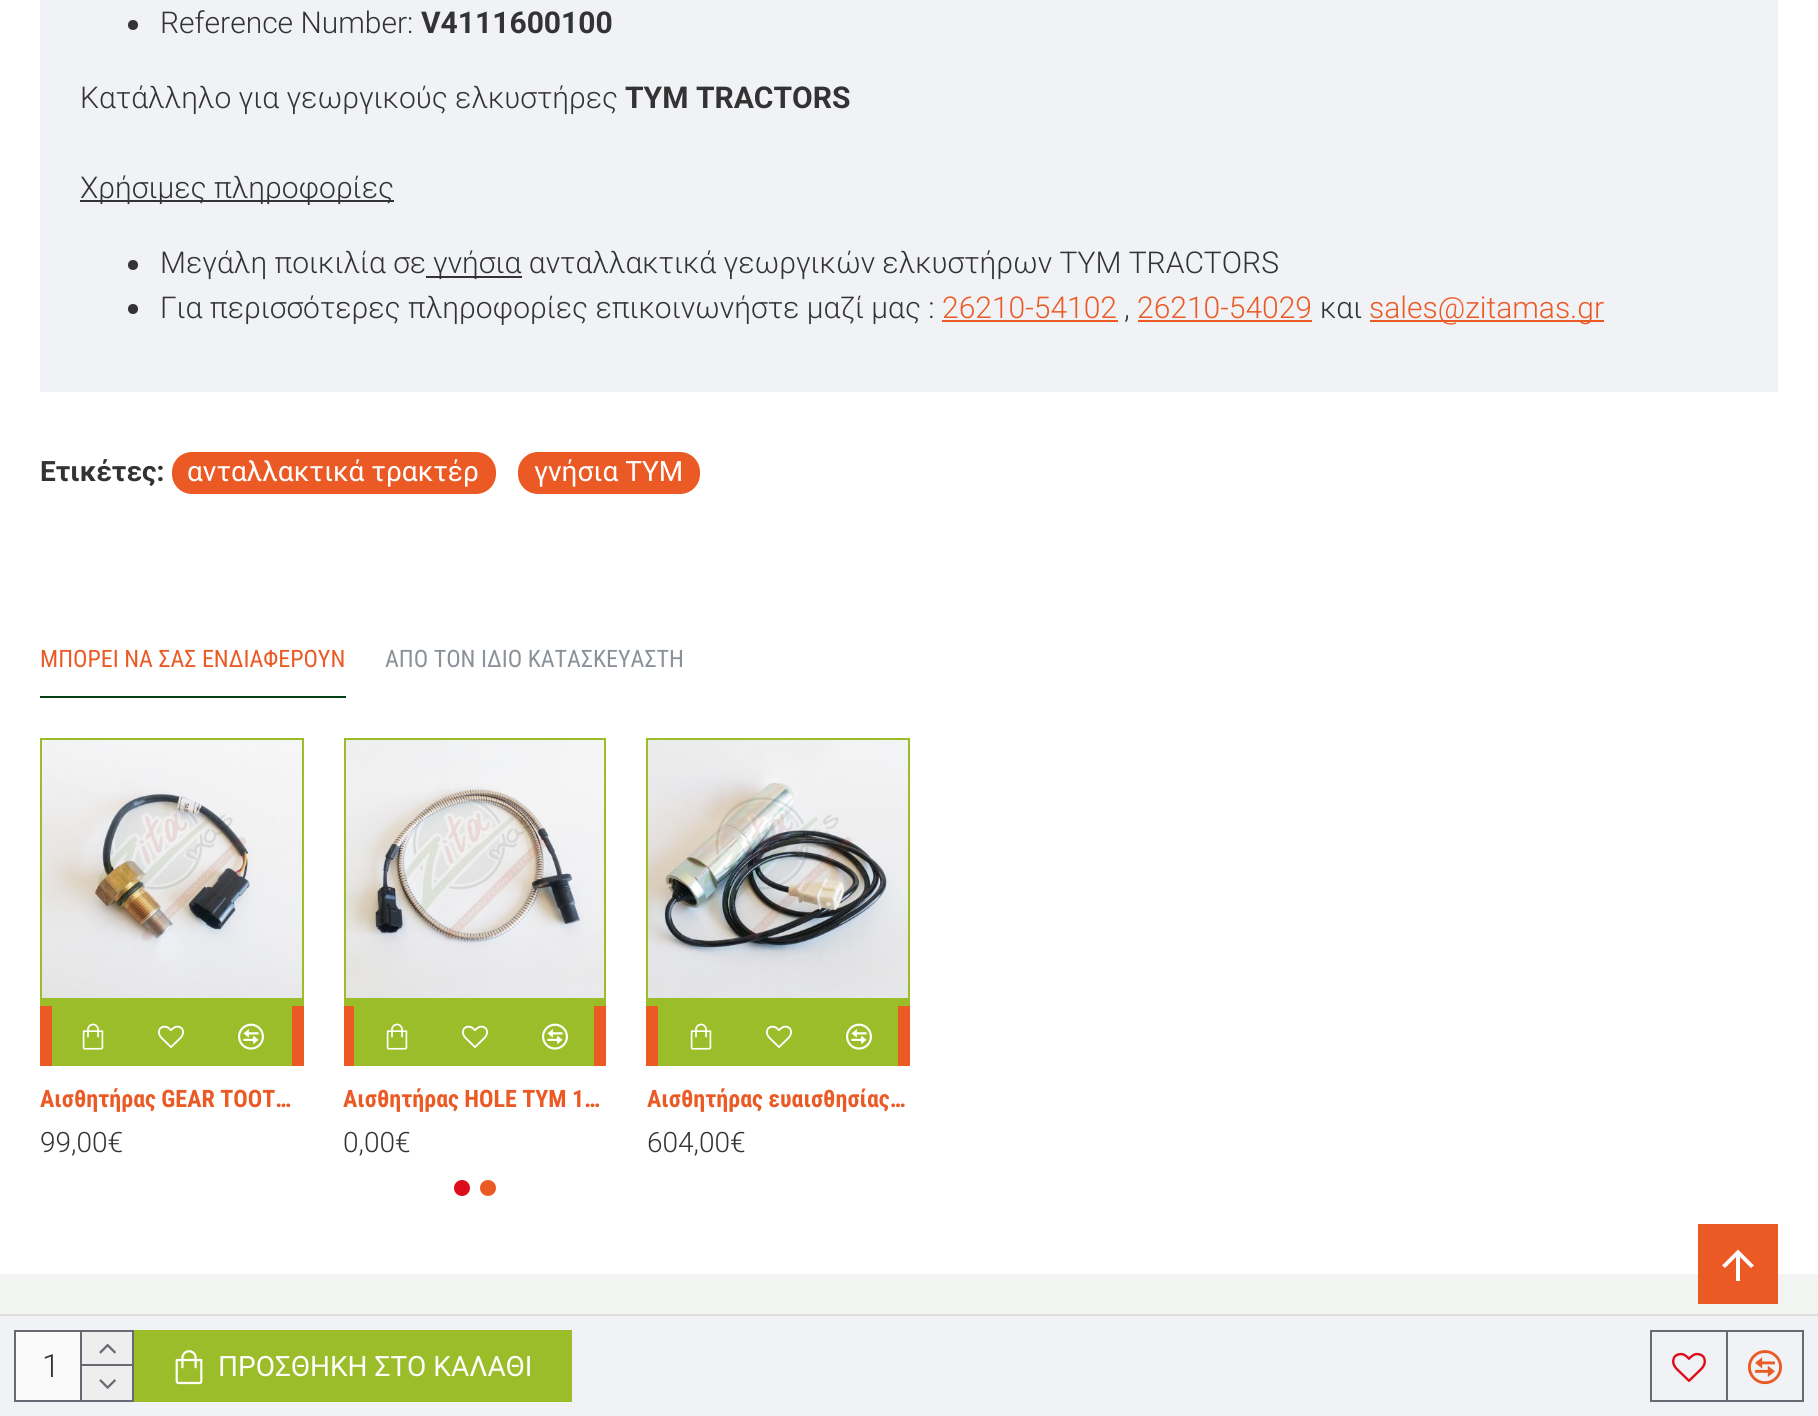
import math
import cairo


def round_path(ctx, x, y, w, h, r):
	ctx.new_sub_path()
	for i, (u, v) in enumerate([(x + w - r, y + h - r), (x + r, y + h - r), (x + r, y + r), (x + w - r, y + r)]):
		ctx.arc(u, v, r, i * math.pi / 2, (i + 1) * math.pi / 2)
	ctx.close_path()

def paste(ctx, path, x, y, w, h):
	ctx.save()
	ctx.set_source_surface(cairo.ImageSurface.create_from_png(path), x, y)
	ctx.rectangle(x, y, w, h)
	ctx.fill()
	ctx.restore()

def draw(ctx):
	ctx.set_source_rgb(1, 1, 1)
	ctx.paint()
	ctx.set_source_rgb(0.941, 0.949, 0.961)
	ctx.rectangle(40, 0, 1738, 392)
	ctx.fill()
	ctx.set_source_rgb(0.2, 0.2, 0.2)
	ctx.arc(133, 25, 5, 0, 2 * math.pi)
	ctx.fill()
	ctx.select_font_face('Roboto Light')
	ctx.set_font_size(30)
	ctx.move_to(160, 33)
	ctx.show_text('Reference Number:')
	ctx.select_font_face('Roboto', cairo.FONT_SLANT_NORMAL, cairo.FONT_WEIGHT_BOLD)
	ctx.move_to(421, 33)
	ctx.show_text('V4111600100')
	ctx.select_font_face('Roboto Light')
	ctx.move_to(80, 108)
	ctx.show_text('Κατάλληλο για γεωργικούς ελκυστήρες')
	ctx.select_font_face('Roboto', cairo.FONT_SLANT_NORMAL, cairo.FONT_WEIGHT_BOLD)
	ctx.move_to(625, 108)
	ctx.show_text('TYM TRACTORS')
	ctx.rectangle(80, 200, 314, 2)
	ctx.fill()
	ctx.select_font_face('Roboto Light')
	ctx.move_to(80, 198)
	ctx.show_text('Χρήσιμες πληροφορίες')
	ctx.new_path()
	ctx.arc(133, 265, 5, 0, 2 * math.pi)
	ctx.fill()
	ctx.move_to(160, 273)
	ctx.show_text('Μεγάλη ποικιλία σε')
	ctx.rectangle(426, 276, 96, 2)
	ctx.fill()
	ctx.move_to(433, 273)
	ctx.show_text('γνήσια ανταλλακτικά γεωργικών ελκυστήρων TYM TRACTORS')
	ctx.new_path()
	ctx.arc(133, 309, 5, 0, 2 * math.pi)
	ctx.fill()
	ctx.move_to(160, 318)
	ctx.show_text('Για περισσότερες πληροφορίες επικοινωνήστε μαζί μας :')
	ctx.set_source_rgb(0.918, 0.353, 0.145)
	ctx.move_to(942, 318)
	ctx.show_text('26210-54102')
	ctx.rectangle(942, 320, 176, 2)
	ctx.fill()
	ctx.move_to(1137, 318)
	ctx.show_text('26210-54029')
	ctx.rectangle(1138, 320, 174, 2)
	ctx.fill()
	ctx.set_source_rgb(0.2, 0.2, 0.2)
	ctx.move_to(1320, 318)
	ctx.show_text('και')
	ctx.set_source_rgb(0.918, 0.353, 0.145)
	ctx.rectangle(1370, 320, 234, 2)
	ctx.fill()
	ctx.move_to(1369, 318)
	ctx.show_text('sales@zitamas.gr')
	ctx.set_source_rgb(0.2, 0.2, 0.2)
	ctx.move_to(1124, 318)
	ctx.show_text(',')
	ctx.select_font_face('Roboto', cairo.FONT_SLANT_NORMAL, cairo.FONT_WEIGHT_BOLD)
	ctx.set_font_size(28)
	ctx.move_to(40, 481)
	ctx.show_text('Ετικέτες:')
	ctx.set_source_rgb(0.918, 0.353, 0.145)
	round_path(ctx, 172, 452, 324, 42, 20)
	ctx.fill()
	ctx.select_font_face('Roboto')
	ctx.set_source_rgb(1, 1, 1)
	ctx.move_to(187, 481)
	ctx.show_text('ανταλλακτικά τρακτέρ')
	ctx.set_source_rgb(0.918, 0.353, 0.145)
	round_path(ctx, 518, 452, 182, 42, 20)
	ctx.fill()
	ctx.set_source_rgb(1, 1, 1)
	ctx.move_to(534, 481)
	ctx.show_text('γνήσια TYM')
	ctx.set_source_rgb(0.941, 0.949, 0.961)
	ctx.rectangle(0, 1316, 1818, 100)
	ctx.fill()
	ctx.set_source_rgb(0.867, 0.867, 0.867)
	ctx.rectangle(0, 1314, 1818, 2)
	ctx.fill()
	ctx.rectangle(15, 1331, 118, 70)
	ctx.set_source_rgb(0.412, 0.412, 0.451)
	ctx.stroke()
	ctx.set_source_rgb(0.98, 0.98, 0.98)
	ctx.rectangle(16, 1332, 64, 68)
	ctx.fill()
	ctx.select_font_face('Roboto Light')
	ctx.set_font_size(32)
	ctx.set_source_rgb(0.2, 0.2, 0.2)
	ctx.move_to(42, 1377)
	ctx.show_text('1')
	ctx.set_source_rgb(0.412, 0.412, 0.451)
	ctx.rectangle(80, 1332, 2, 68)
	ctx.fill()
	ctx.set_source_rgb(0.933, 0.933, 0.933)
	ctx.rectangle(82, 1332, 50, 32)
	ctx.fill()
	ctx.set_source_rgb(0.412, 0.412, 0.451)
	ctx.rectangle(82, 1364, 50, 2)
	ctx.fill()
	paste(ctx, 'media/1.png', 99, 1343, 17, 11)
	ctx.set_source_rgb(0.933, 0.933, 0.933)
	ctx.rectangle(82, 1366, 50, 34)
	ctx.fill()
	paste(ctx, 'media/2.png', 99, 1379, 17, 10)
	ctx.set_source_rgb(0.608, 0.741, 0.165)
	ctx.rectangle(134, 1330, 438, 72)
	ctx.fill()
	paste(ctx, 'media/3.png', 175, 1350, 28, 35)
	ctx.select_font_face('Roboto')
	ctx.set_font_size(28)
	ctx.set_source_rgb(1, 1, 1)
	ctx.move_to(218, 1376)
	ctx.show_text('ΠΡΟΣΘΗΚΗ ΣΤΟ ΚΑΛΑΘΙ')
	ctx.rectangle(1651, 1331, 76, 70)
	ctx.set_source_rgb(0.412, 0.412, 0.451)
	ctx.stroke()
	paste(ctx, 'media/4.png', 1672, 1352, 34, 30)
	ctx.rectangle(1727, 1331, 76, 70)
	ctx.stroke()
	paste(ctx, 'media/5.png', 1748, 1350, 34, 35)
	ctx.set_source_rgb(0.008, 0.247, 0.082)
	ctx.rectangle(40, 696, 306, 2)
	ctx.fill()
	ctx.select_font_face('Roboto Condensed')
	ctx.set_font_size(24)
	ctx.set_source_rgb(0.918, 0.353, 0.145)
	ctx.move_to(40, 667)
	ctx.show_text('ΜΠΟΡΕΙ ΝΑ ΣΑΣ ΕΝΔΙΑΦΕΡΟΥΝ')
	ctx.set_source_rgb(0.545, 0.569, 0.596)
	ctx.move_to(385, 667)
	ctx.show_text('ΑΠΟ ΤΟΝ ΙΔΙΟ ΚΑΤΑΣΚΕΥΑΣΤΗ')
	ctx.set_source_rgb(0.608, 0.741, 0.165)
	ctx.rectangle(40, 738, 264, 2)
	ctx.rectangle(302, 738, 2, 268)
	ctx.rectangle(40, 998, 264, 8)
	ctx.rectangle(40, 738, 2, 268)
	ctx.fill()
	paste(ctx, 'media/6.png', 42, 740, 260, 258)
	ctx.set_source_rgb(0.918, 0.353, 0.145)
	ctx.rectangle(40, 1006, 264, 60)
	ctx.fill()
	ctx.set_source_rgb(0.608, 0.741, 0.165)
	ctx.rectangle(52, 1006, 240, 60)
	ctx.fill()
	paste(ctx, 'media/7.png', 82, 1023, 22, 27)
	paste(ctx, 'media/8.png', 158, 1025, 26, 23)
	paste(ctx, 'media/9.png', 238, 1023, 26, 27)
	ctx.select_font_face('Roboto Condensed', cairo.FONT_SLANT_NORMAL, cairo.FONT_WEIGHT_BOLD)
	ctx.set_source_rgb(0.918, 0.353, 0.145)
	ctx.move_to(40, 1107)
	ctx.show_text('Αισθητήρας GEAR TOOT…')
	ctx.select_font_face('Roboto Light')
	ctx.set_font_size(28)
	ctx.set_source_rgb(0.2, 0.2, 0.2)
	ctx.move_to(40, 1152)
	ctx.show_text('99,00€')
	ctx.set_source_rgb(0.608, 0.741, 0.165)
	ctx.rectangle(344, 738, 262, 2)
	ctx.rectangle(604, 738, 2, 268)
	ctx.rectangle(344, 998, 262, 8)
	ctx.rectangle(344, 738, 2, 268)
	ctx.fill()
	paste(ctx, 'media/10.png', 346, 740, 258, 258)
	ctx.set_source_rgb(0.918, 0.353, 0.145)
	ctx.rectangle(344, 1006, 262, 60)
	ctx.fill()
	ctx.set_source_rgb(0.608, 0.741, 0.165)
	ctx.rectangle(354, 1006, 240, 60)
	ctx.fill()
	paste(ctx, 'media/7.png', 386, 1023, 22, 27)
	paste(ctx, 'media/8.png', 462, 1025, 26, 23)
	paste(ctx, 'media/9.png', 542, 1023, 26, 27)
	ctx.select_font_face('Roboto Condensed', cairo.FONT_SLANT_NORMAL, cairo.FONT_WEIGHT_BOLD)
	ctx.set_font_size(24)
	ctx.set_source_rgb(0.918, 0.353, 0.145)
	ctx.move_to(343, 1107)
	ctx.show_text('Αισθητήρας HOLE TYM 1…')
	ctx.select_font_face('Roboto Light')
	ctx.set_font_size(28)
	ctx.set_source_rgb(0.2, 0.2, 0.2)
	ctx.move_to(343, 1152)
	ctx.show_text('0,00€')
	ctx.set_source_rgb(0.608, 0.741, 0.165)
	ctx.rectangle(646, 738, 264, 2)
	ctx.rectangle(908, 738, 2, 268)
	ctx.rectangle(646, 998, 264, 8)
	ctx.rectangle(646, 738, 2, 268)
	ctx.fill()
	paste(ctx, 'media/11.png', 648, 740, 260, 258)
	ctx.set_source_rgb(0.918, 0.353, 0.145)
	ctx.rectangle(646, 1006, 264, 60)
	ctx.fill()
	ctx.set_source_rgb(0.608, 0.741, 0.165)
	ctx.rectangle(658, 1006, 240, 60)
	ctx.fill()
	paste(ctx, 'media/7.png', 690, 1023, 22, 27)
	paste(ctx, 'media/8.png', 766, 1025, 26, 23)
	paste(ctx, 'media/9.png', 846, 1023, 26, 27)
	ctx.select_font_face('Roboto Condensed', cairo.FONT_SLANT_NORMAL, cairo.FONT_WEIGHT_BOLD)
	ctx.set_font_size(24)
	ctx.set_source_rgb(0.918, 0.353, 0.145)
	ctx.move_to(647, 1107)
	ctx.show_text('Αισθητήρας ευαισθησίας…')
	ctx.select_font_face('Roboto Light')
	ctx.set_font_size(28)
	ctx.set_source_rgb(0.2, 0.2, 0.2)
	ctx.move_to(647, 1152)
	ctx.show_text('604,00€')
	ctx.set_source_rgb(0.867, 0.055, 0.11)
	ctx.new_path()
	ctx.arc(462, 1188, 8, 0, 2 * math.pi)
	ctx.fill()
	ctx.set_source_rgb(0.918, 0.353, 0.145)
	ctx.arc(488, 1188, 8, 0, 2 * math.pi)
	ctx.fill()
	ctx.set_source_rgb(0.945, 0.957, 0.941)
	ctx.rectangle(0, 1274, 1818, 40)
	ctx.fill()
	ctx.set_source_rgb(0.918, 0.353, 0.145)
	ctx.rectangle(1698, 1224, 80, 80)
	ctx.fill()
	ctx.set_source_rgb(1, 1, 1)
	ctx.new_path()
	ctx.move_to(1722, 1265.5)
	ctx.line_to(1738, 1249.5)
	ctx.line_to(1754, 1265.5)
	ctx.line_to(1751, 1268)
	ctx.line_to(1740, 1257)
	ctx.line_to(1740, 1281)
	ctx.line_to(1736, 1281)
	ctx.line_to(1736, 1257)
	ctx.line_to(1725, 1268)
	ctx.close_path()
	ctx.fill()


surface = cairo.ImageSurface(cairo.FORMAT_RGB24, 1818, 1416)
ctx = cairo.Context(surface)
options = cairo.FontOptions()
options.set_hint_metrics(cairo.HINT_METRICS_OFF)
options.set_hint_style(cairo.HINT_STYLE_NONE)
ctx.set_font_options(options)
ctx.set_miter_limit(4)
draw(ctx)
surface.write_to_png('image.png')
